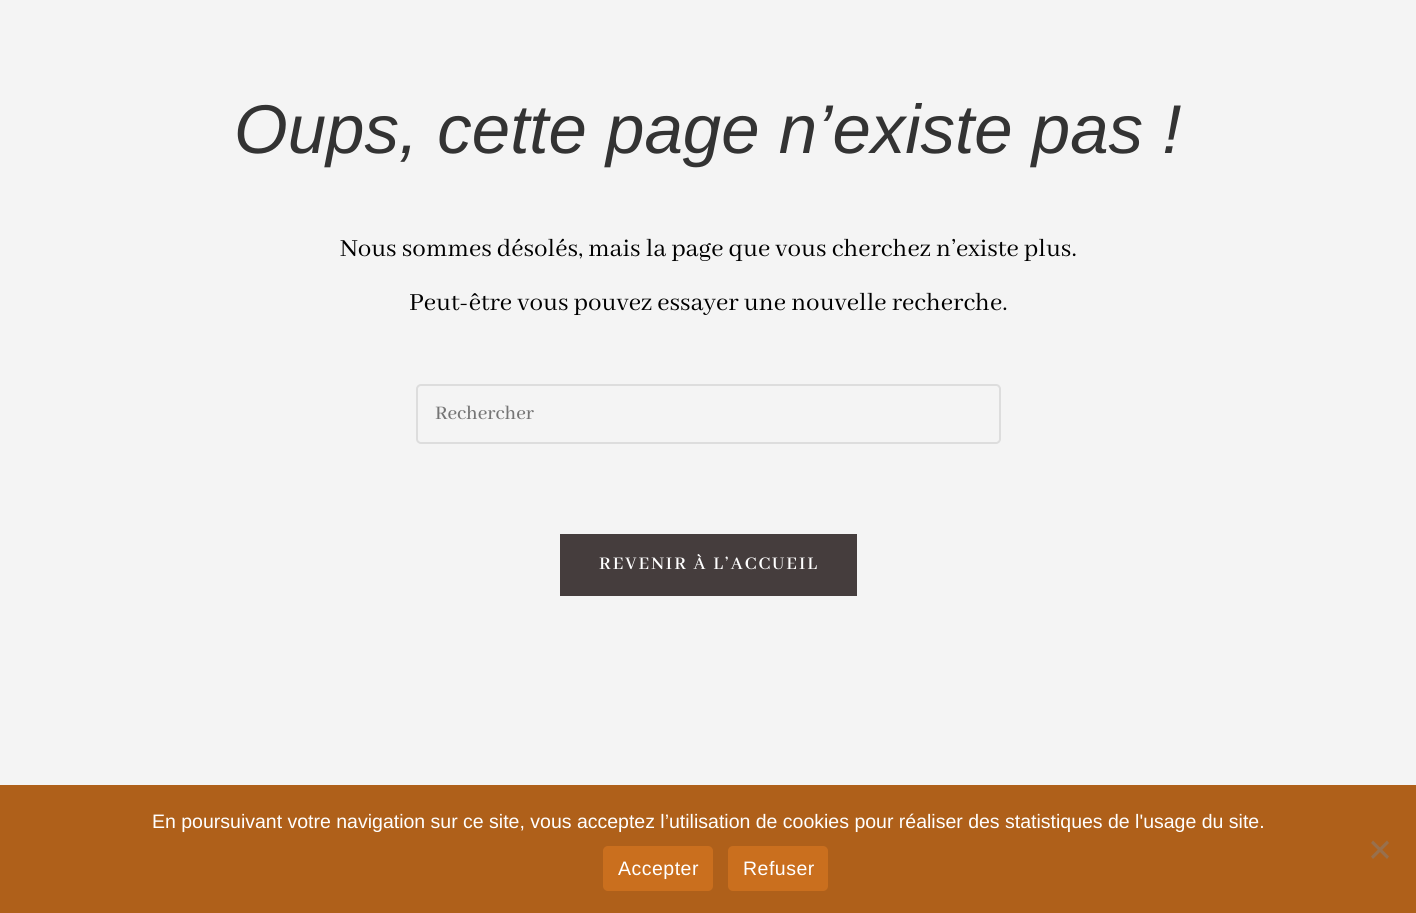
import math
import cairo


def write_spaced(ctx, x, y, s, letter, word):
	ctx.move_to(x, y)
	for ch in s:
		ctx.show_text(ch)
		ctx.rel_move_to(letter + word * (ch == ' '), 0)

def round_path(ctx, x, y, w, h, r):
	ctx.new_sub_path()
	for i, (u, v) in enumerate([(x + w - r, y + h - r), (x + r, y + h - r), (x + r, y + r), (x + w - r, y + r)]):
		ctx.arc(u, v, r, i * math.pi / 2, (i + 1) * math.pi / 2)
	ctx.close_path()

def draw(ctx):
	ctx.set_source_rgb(0.957, 0.957, 0.957)
	ctx.paint()
	ctx.select_font_face('Liberation Sans', cairo.FONT_SLANT_ITALIC)
	ctx.set_font_size(69)
	ctx.set_source_rgb(0.2, 0.2, 0.2)
	ctx.move_to(234, 153)
	ctx.show_text('Oups, cette page n’existe pas !')
	ctx.select_font_face('Abhaya Libre')
	ctx.set_font_size(27)
	ctx.set_source_rgb(0, 0, 0)
	ctx.move_to(340, 256)
	ctx.show_text('Nous sommes désolés, mais la page que vous cherchez n’existe plus.')
	ctx.move_to(409, 310)
	ctx.show_text('Peut-être vous pouvez essayer une nouvelle recherche.')
	round_path(ctx, 417, 385, 583, 58, 4)
	ctx.set_source_rgb(0.867, 0.867, 0.867)
	ctx.stroke()
	ctx.select_font_face('Abhaya Libre Medium Medium')
	ctx.set_font_size(21)
	ctx.set_source_rgb(0.459, 0.459, 0.459)
	ctx.move_to(435, 419)
	ctx.show_text('Rechercher')
	ctx.set_source_rgb(0.271, 0.239, 0.239)
	ctx.rectangle(560, 534, 297, 62)
	ctx.fill()
	ctx.select_font_face('Abhaya Libre SemiBold SemiBold')
	ctx.set_font_size(19.5)
	ctx.set_source_rgb(1, 1, 1)
	write_spaced(ctx, 599, 569, 'REVENIR À L’ACCUEIL', 2, 0)
	ctx.set_source_rgb(0.686, 0.376, 0.102)
	ctx.rectangle(0, 785, 1416, 128)
	ctx.fill()
	ctx.select_font_face('Liberation Sans')
	ctx.set_source_rgb(1, 1, 1)
	ctx.move_to(152, 828)
	ctx.show_text('En poursuivant votre navigation sur ce site, vous acceptez l’utilisation de cookies pour réaliser des statistiques de l\'usage du site.')
	ctx.set_source_rgb(0.596, 0.439, 0.302)
	ctx.new_path()
	ctx.move_to(1387, 840.5)
	ctx.line_to(1389, 843)
	ctx.line_to(1373, 859)
	ctx.line_to(1371, 856.5)
	ctx.close_path()
	ctx.fill()
	ctx.new_path()
	ctx.move_to(1371, 843)
	ctx.line_to(1373, 840.5)
	ctx.line_to(1389, 856.5)
	ctx.line_to(1387, 859)
	ctx.close_path()
	ctx.fill()
	ctx.set_source_rgb(0.792, 0.435, 0.118)
	round_path(ctx, 603, 846, 110, 45, 5)
	ctx.fill()
	ctx.set_source_rgb(1, 1, 1)
	write_spaced(ctx, 618, 875, 'Accepter', 0.5, 0)
	ctx.set_source_rgb(0.792, 0.435, 0.118)
	round_path(ctx, 728, 846, 100, 45, 5)
	ctx.fill()
	ctx.set_source_rgb(1, 1, 1)
	write_spaced(ctx, 743, 875, 'Refuser', 0.5, 0)


surface = cairo.ImageSurface(cairo.FORMAT_RGB24, 1416, 913)
ctx = cairo.Context(surface)
options = cairo.FontOptions()
options.set_hint_metrics(cairo.HINT_METRICS_OFF)
options.set_hint_style(cairo.HINT_STYLE_NONE)
ctx.set_font_options(options)
ctx.set_miter_limit(4)
draw(ctx)
surface.write_to_png('image.png')
